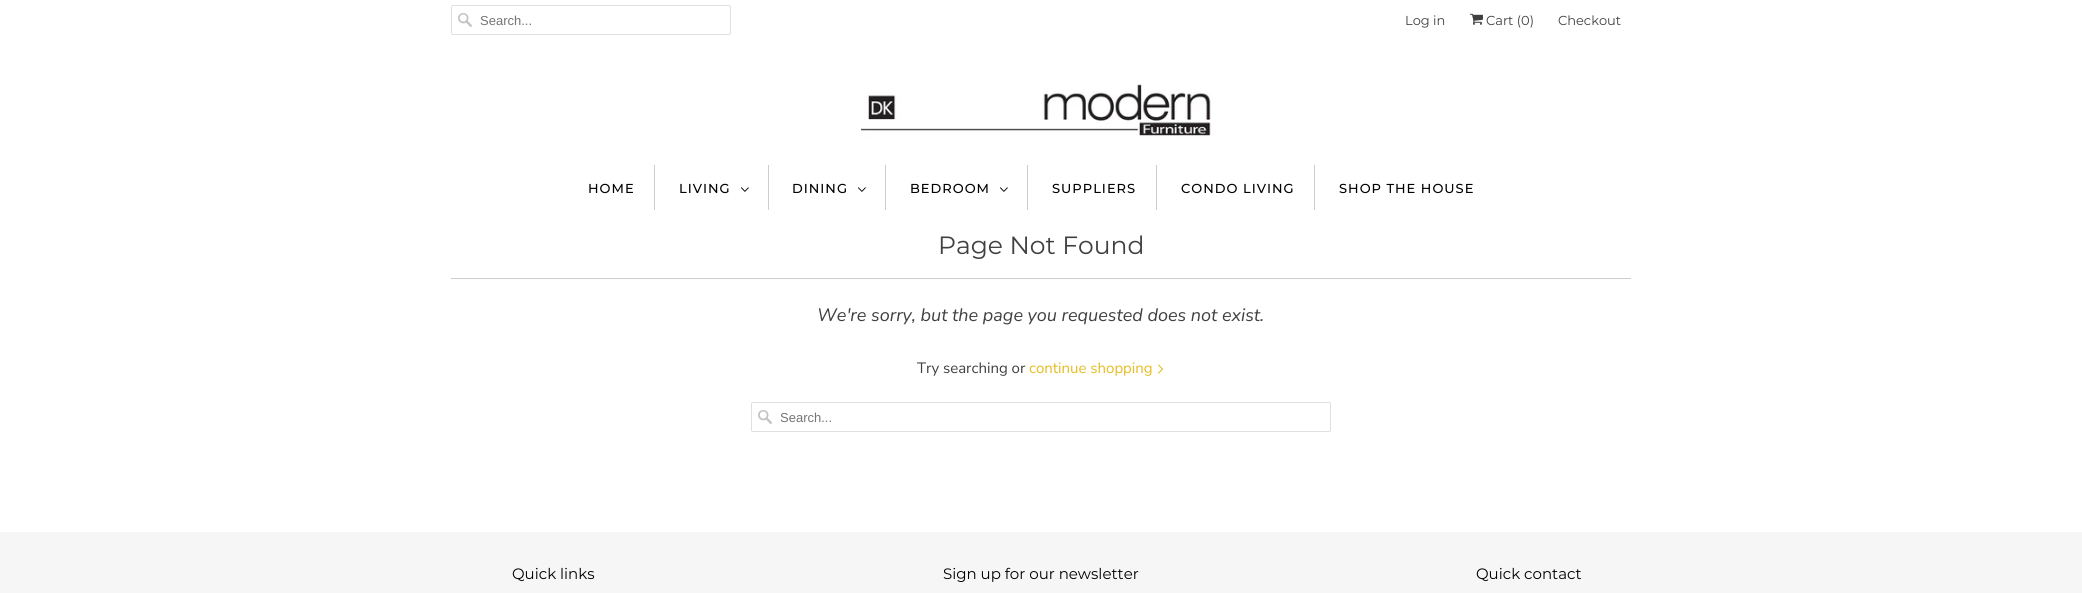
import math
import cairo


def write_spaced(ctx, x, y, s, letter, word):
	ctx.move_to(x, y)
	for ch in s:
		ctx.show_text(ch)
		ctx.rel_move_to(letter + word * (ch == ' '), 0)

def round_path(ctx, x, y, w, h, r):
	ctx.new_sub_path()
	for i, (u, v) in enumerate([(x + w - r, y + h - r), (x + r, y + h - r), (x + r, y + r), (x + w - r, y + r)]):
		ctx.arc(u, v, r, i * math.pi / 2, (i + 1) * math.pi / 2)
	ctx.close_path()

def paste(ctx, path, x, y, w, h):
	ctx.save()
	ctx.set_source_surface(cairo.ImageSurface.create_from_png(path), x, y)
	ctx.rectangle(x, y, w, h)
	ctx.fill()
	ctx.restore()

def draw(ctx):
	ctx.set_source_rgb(1, 1, 1)
	ctx.paint()
	paste(ctx, 'media/1.png', 458, 13, 14, 14)
	round_path(ctx, 451.5, 5.5, 279, 29, 1.5)
	ctx.set_source_rgb(0.875, 0.875, 0.875)
	ctx.set_line_width(1)
	ctx.stroke()
	ctx.select_font_face('Liberation Sans')
	ctx.set_font_size(13)
	ctx.set_source_rgb(0.459, 0.459, 0.459)
	ctx.move_to(480, 25)
	ctx.show_text('Search...')
	ctx.select_font_face('Montserrat')
	ctx.set_source_rgb(0.251, 0.251, 0.251)
	ctx.move_to(1405, 25)
	ctx.show_text('Log in')
	paste(ctx, 'media/2.png', 1470, 13, 13, 12)
	ctx.move_to(1486, 25)
	ctx.show_text('Cart (0)')
	ctx.move_to(1558, 25)
	ctx.show_text('Checkout')
	paste(ctx, 'media/3.png', 861, 84, 350, 54)
	ctx.set_source_rgb(0.804, 0.804, 0.804)
	ctx.rectangle(654, 165, 1, 45)
	ctx.fill()
	ctx.select_font_face('Montserrat Medium')
	ctx.set_source_rgb(0, 0, 0)
	write_spaced(ctx, 588, 193, 'HOME', 1, 0)
	ctx.set_source_rgb(0.804, 0.804, 0.804)
	ctx.rectangle(768, 165, 1, 45)
	ctx.fill()
	ctx.set_source_rgb(0, 0, 0)
	write_spaced(ctx, 679, 193, 'LIVING', 1, 0)
	paste(ctx, 'media/4.png', 741, 187, 8, 5)
	ctx.set_source_rgb(0.804, 0.804, 0.804)
	ctx.rectangle(885, 165, 1, 45)
	ctx.fill()
	ctx.set_source_rgb(0, 0, 0)
	write_spaced(ctx, 792, 193, 'DINING', 1, 0)
	paste(ctx, 'media/4.png', 858, 187, 8, 5)
	ctx.set_source_rgb(0.804, 0.804, 0.804)
	ctx.rectangle(1027, 165, 1, 45)
	ctx.fill()
	ctx.set_source_rgb(0, 0, 0)
	write_spaced(ctx, 910, 193, 'BEDROOM', 1, 0)
	paste(ctx, 'media/4.png', 1000, 187, 8, 5)
	ctx.set_source_rgb(0.804, 0.804, 0.804)
	ctx.rectangle(1156, 165, 1, 45)
	ctx.fill()
	ctx.set_source_rgb(0, 0, 0)
	write_spaced(ctx, 1052, 193, 'SUPPLIERS', 1, 0)
	ctx.set_source_rgb(0.804, 0.804, 0.804)
	ctx.rectangle(1314, 165, 1, 45)
	ctx.fill()
	ctx.set_source_rgb(0, 0, 0)
	write_spaced(ctx, 1181, 193, 'CONDO LIVING', 1, 0)
	write_spaced(ctx, 1339, 193, 'SHOP THE HOUSE', 1, 0)
	ctx.set_source_rgb(0.804, 0.804, 0.804)
	ctx.rectangle(451, 278, 1180, 1)
	ctx.fill()
	ctx.select_font_face('Montserrat')
	ctx.set_font_size(25)
	ctx.set_source_rgb(0.251, 0.251, 0.251)
	ctx.move_to(938, 254)
	ctx.show_text('Page Not Found')
	ctx.select_font_face('Nunito Sans', cairo.FONT_SLANT_ITALIC)
	ctx.set_font_size(18)
	ctx.move_to(817, 321)
	ctx.show_text('We\'re sorry, but the page you requested does not exist.')
	ctx.select_font_face('Nunito Sans')
	ctx.set_font_size(15)
	ctx.move_to(917, 373)
	ctx.show_text('Try searching or')
	ctx.set_source_rgb(0.902, 0.733, 0.137)
	ctx.move_to(1029, 373)
	ctx.show_text('continue shopping')
	paste(ctx, 'media/5.png', 1157, 364, 6, 10)
	paste(ctx, 'media/1.png', 758, 410, 14, 14)
	round_path(ctx, 751.5, 402.5, 579, 29, 1.5)
	ctx.set_source_rgb(0.875, 0.875, 0.875)
	ctx.stroke()
	ctx.select_font_face('Liberation Sans')
	ctx.set_font_size(13)
	ctx.set_source_rgb(0.459, 0.459, 0.459)
	ctx.move_to(780, 422)
	ctx.show_text('Search...')
	ctx.set_source_rgb(0.961, 0.961, 0.961)
	ctx.rectangle(0, 532, 2082, 61)
	ctx.fill()
	ctx.select_font_face('Montserrat')
	ctx.set_font_size(15)
	ctx.set_source_rgb(0, 0, 0)
	for x, y, s in [
		(512, 579, 'Quick links'),
		(943, 579, 'Sign up for our newsletter'),
		(1476, 579, 'Quick contact'),
	]:
		ctx.move_to(x, y)
		ctx.show_text(s)


surface = cairo.ImageSurface(cairo.FORMAT_RGB24, 2082, 593)
ctx = cairo.Context(surface)
options = cairo.FontOptions()
options.set_hint_metrics(cairo.HINT_METRICS_OFF)
options.set_hint_style(cairo.HINT_STYLE_NONE)
ctx.set_font_options(options)
ctx.set_miter_limit(4)
draw(ctx)
surface.write_to_png('image.png')
